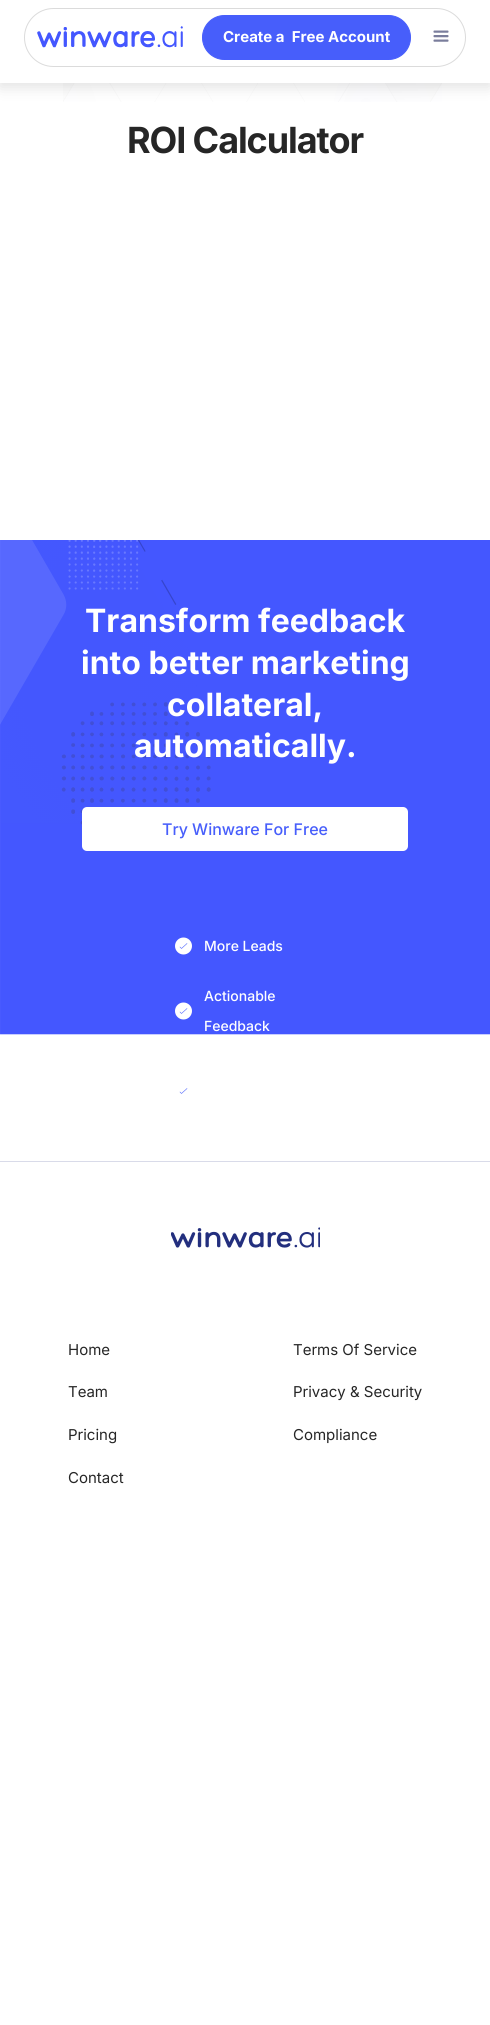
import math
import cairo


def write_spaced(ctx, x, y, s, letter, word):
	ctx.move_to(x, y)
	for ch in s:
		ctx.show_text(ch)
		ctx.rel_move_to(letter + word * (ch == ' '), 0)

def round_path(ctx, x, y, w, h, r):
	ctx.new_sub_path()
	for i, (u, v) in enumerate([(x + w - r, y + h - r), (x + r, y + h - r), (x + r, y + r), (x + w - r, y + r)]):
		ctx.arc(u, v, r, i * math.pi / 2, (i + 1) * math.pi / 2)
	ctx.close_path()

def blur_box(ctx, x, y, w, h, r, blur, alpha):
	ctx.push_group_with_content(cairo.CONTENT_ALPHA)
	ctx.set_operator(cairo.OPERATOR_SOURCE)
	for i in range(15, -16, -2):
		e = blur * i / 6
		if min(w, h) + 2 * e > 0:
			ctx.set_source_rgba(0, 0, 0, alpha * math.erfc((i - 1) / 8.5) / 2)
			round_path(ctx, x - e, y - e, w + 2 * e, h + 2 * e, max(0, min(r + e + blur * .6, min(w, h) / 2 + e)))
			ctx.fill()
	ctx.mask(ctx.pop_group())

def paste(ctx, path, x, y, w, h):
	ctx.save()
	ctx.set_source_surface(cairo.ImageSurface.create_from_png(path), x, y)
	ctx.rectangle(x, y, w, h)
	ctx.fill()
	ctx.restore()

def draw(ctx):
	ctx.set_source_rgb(1, 1, 1)
	ctx.paint()
	paste(ctx, 'media/3.png', 63, 83, 379, 19)
	ctx.set_source_rgb(0, 0, 0)
	blur_box(ctx, 0, 4, 490, 83, 0, 7.5, 0.12)
	ctx.set_source_rgb(1, 1, 1)
	ctx.rectangle(0, 0, 490, 83)
	ctx.fill()
	round_path(ctx, 24.5, 8.5, 441, 58, 29)
	ctx.set_source_rgb(0.859, 0.859, 0.859)
	ctx.set_line_width(1)
	ctx.stroke()
	paste(ctx, 'media/1.png', 37, 26, 146, 22)
	ctx.set_source_rgb(0.278, 0.369, 0.984)
	round_path(ctx, 202.5, 15.5, 208, 44, 22)
	ctx.fill_preserve()
	ctx.stroke()
	ctx.select_font_face('Inter', cairo.FONT_SLANT_NORMAL, cairo.FONT_WEIGHT_BOLD)
	ctx.set_font_size(15)
	ctx.set_source_rgb(1, 1, 1)
	ctx.move_to(223, 42)
	ctx.show_text('Create a  Free Account')
	paste(ctx, 'media/2.png', 433, 30, 16, 12)
	ctx.set_font_size(36)
	ctx.set_source_rgb(0.149, 0.149, 0.149)
	write_spaced(ctx, 127, 153, 'ROI Calculator', -1.1, 0)
	paste(ctx, 'media/4.png', 0, 540, 490, 495)
	ctx.set_font_size(32)
	ctx.set_source_rgb(1, 1, 1)
	for x, y, s in [
		(85, 632, 'Transform feedback'),
		(81, 674, 'into better marketing'),
		(167, 716, 'collateral,'),
		(134, 757, 'automatically.'),
	]:
		ctx.move_to(x, y)
		ctx.show_text(s)
	round_path(ctx, 82, 807, 326, 44, 5)
	ctx.fill()
	ctx.select_font_face('Inter Medium')
	ctx.set_font_size(16)
	ctx.set_source_rgb(0.278, 0.369, 0.984)
	ctx.move_to(162, 835)
	ctx.show_text('Try Winware For Free')
	ctx.set_source_rgb(1, 1, 1)
	ctx.new_path()
	ctx.arc(183.5, 946, 8.5, 0, 2 * math.pi)
	ctx.fill()
	ctx.new_path()
	ctx.move_to(187, 943.5)
	ctx.line_to(181.5, 948.5)
	ctx.line_to(180, 947)
	ctx.set_source_rgb(0.337, 0.42, 0.988)
	ctx.set_line_width(0.6)
	ctx.set_line_cap(cairo.LINE_CAP_ROUND)
	ctx.set_line_join(cairo.LINE_JOIN_ROUND)
	ctx.stroke()
	ctx.set_font_size(14)
	ctx.set_source_rgb(1, 1, 1)
	ctx.move_to(204, 951)
	ctx.show_text('More Leads')
	ctx.new_path()
	ctx.arc(183.5, 1011, 8.5, 0, 2 * math.pi)
	ctx.fill()
	ctx.new_path()
	ctx.move_to(187, 1008.5)
	ctx.line_to(181.5, 1013.5)
	ctx.line_to(180, 1012)
	ctx.set_source_rgb(0.337, 0.42, 0.988)
	ctx.stroke()
	ctx.set_source_rgb(1, 1, 1)
	ctx.move_to(204, 1001)
	ctx.show_text('Actionable')
	ctx.move_to(204, 1031)
	ctx.show_text('Feedback')
	ctx.new_path()
	ctx.move_to(187, 1088.5)
	ctx.line_to(181.5, 1093.5)
	ctx.line_to(180, 1092)
	ctx.set_source_rgb(0.337, 0.42, 0.988)
	ctx.stroke()
	ctx.set_source_rgb(0.851, 0.859, 0.914)
	ctx.rectangle(0, 1161, 490, 1)
	ctx.fill()
	paste(ctx, 'media/5.png', 171, 1227, 149, 21)
	ctx.select_font_face('Inter')
	ctx.set_font_size(15)
	ctx.set_source_rgb(0.149, 0.149, 0.149)
	for x, y, s in [
		(68, 1355, 'Home'),
		(68, 1397, 'Team'),
		(68, 1440, 'Pricing'),
		(68, 1483, 'Contact'),
		(293, 1355, 'Terms Of Service'),
		(293, 1397, 'Privacy & Security'),
		(293, 1440, 'Compliance'),
	]:
		ctx.move_to(x, y)
		ctx.show_text(s)


surface = cairo.ImageSurface(cairo.FORMAT_RGB24, 490, 2025)
ctx = cairo.Context(surface)
options = cairo.FontOptions()
options.set_hint_metrics(cairo.HINT_METRICS_OFF)
options.set_hint_style(cairo.HINT_STYLE_NONE)
ctx.set_font_options(options)
ctx.set_miter_limit(4)
draw(ctx)
surface.write_to_png('image.png')
